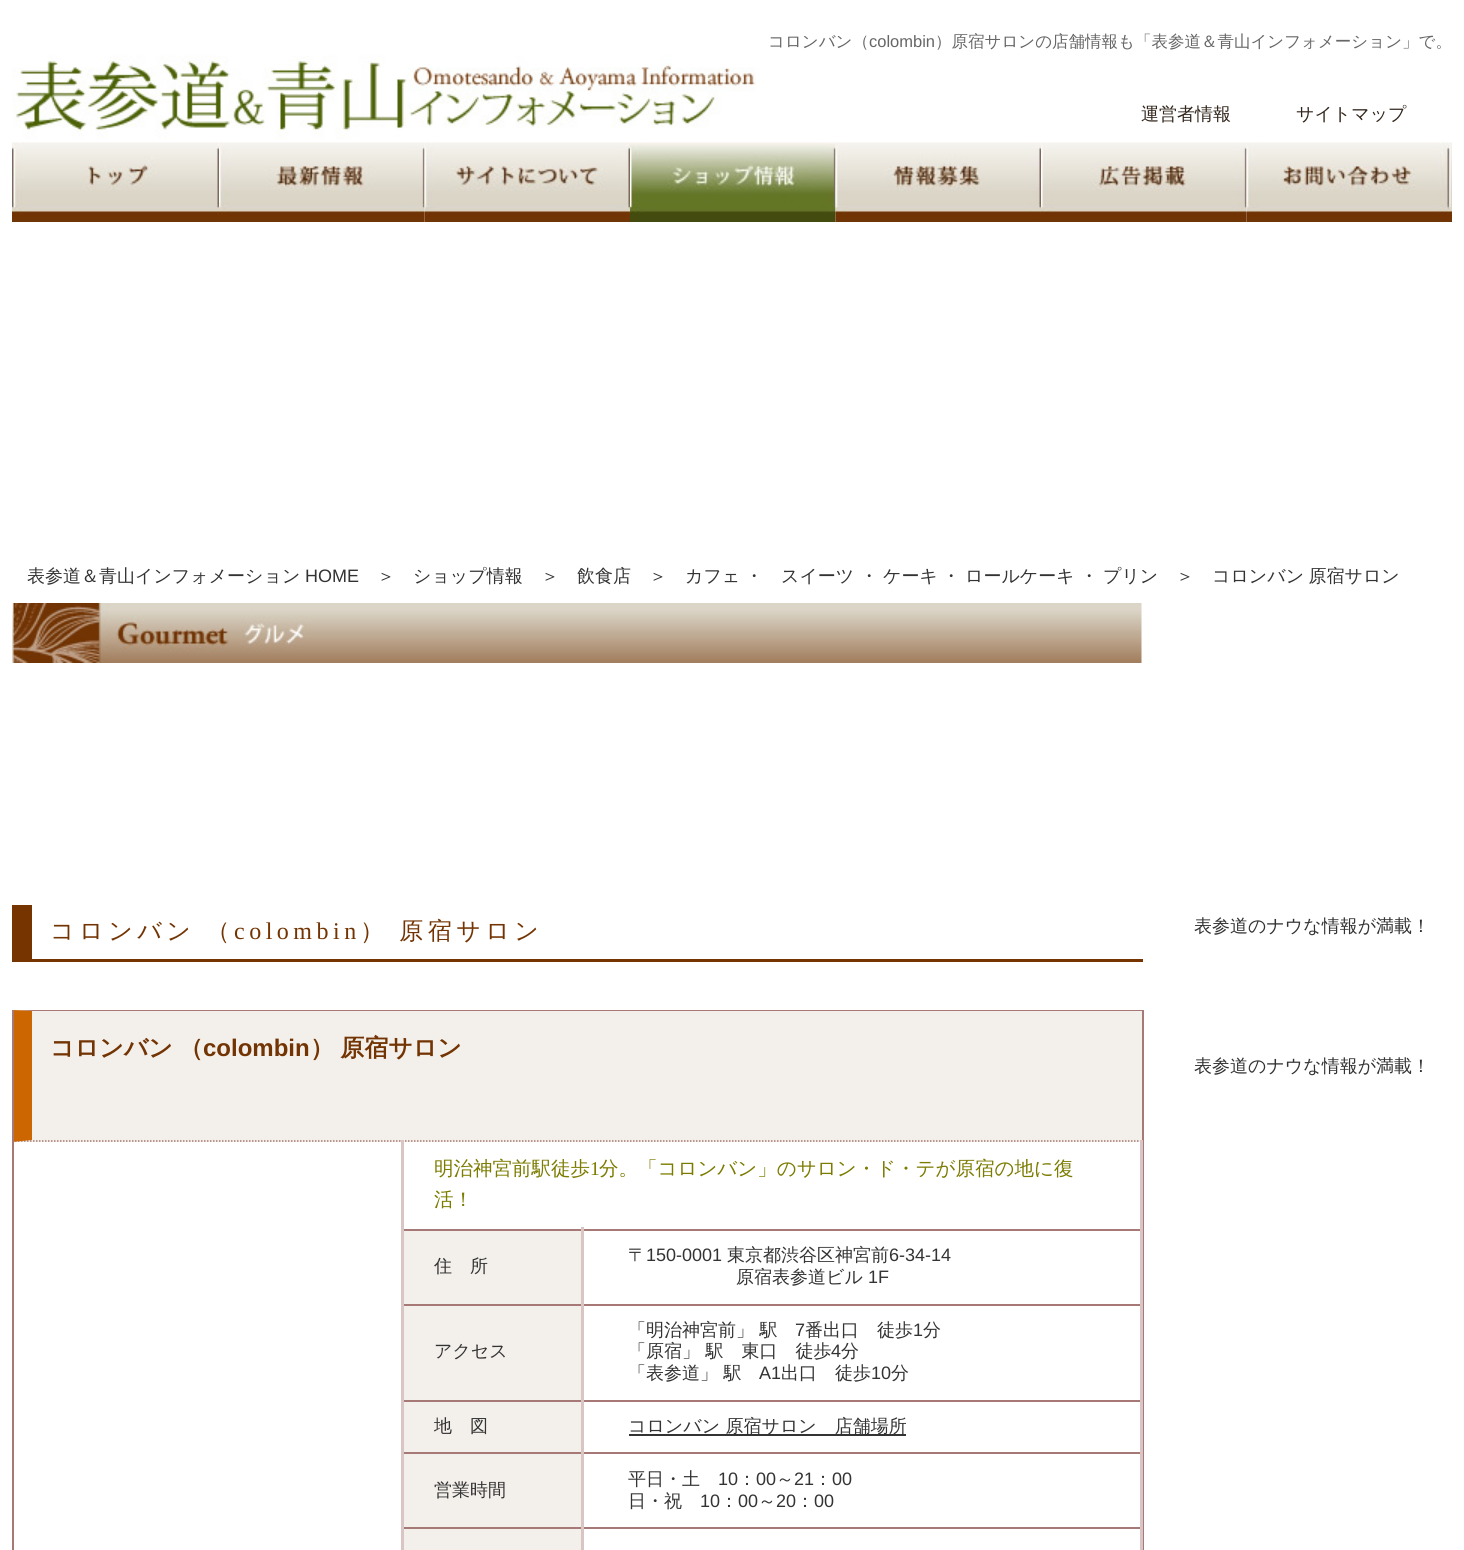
import math
import cairo


def write_spaced(ctx, x, y, s, letter, word):
	ctx.move_to(x, y)
	for ch in s:
		ctx.show_text(ch)
		ctx.rel_move_to(letter + word * (ch == ' '), 0)

def paste(ctx, path, x, y, w, h):
	ctx.save()
	ctx.set_source_surface(cairo.ImageSurface.create_from_png(path), x, y)
	ctx.rectangle(x, y, w, h)
	ctx.fill()
	ctx.restore()

def draw(ctx):
	ctx.set_source_rgb(1, 1, 1)
	ctx.paint()
	ctx.select_font_face('WenQuanYi Zen Hei Medium')
	ctx.set_font_size(16.5)
	ctx.set_source_rgb(0.4, 0.4, 0.4)
	ctx.move_to(768, 47)
	ctx.show_text('コロンバン（')
	ctx.select_font_face('Liberation Sans')
	ctx.move_to(869, 47)
	ctx.show_text('colombin')
	ctx.select_font_face('WenQuanYi Zen Hei Medium')
	ctx.move_to(935, 47)
	ctx.show_text('）原宿サロンの店舗情報も「表参道＆青山インフォメーション」で。')
	paste(ctx, 'media/1.png', 12, 55, 744, 84)
	ctx.set_font_size(18)
	ctx.set_source_rgb(0.196, 0.149, 0.11)
	ctx.move_to(1141, 120)
	ctx.show_text('運営者情報')
	ctx.move_to(1296, 120)
	ctx.show_text('サイトマップ')
	paste(ctx, 'media/2.png', 12, 142, 207, 80)
	paste(ctx, 'media/3.png', 219, 142, 206, 80)
	paste(ctx, 'media/4.png', 424, 142, 206, 80)
	paste(ctx, 'media/5.png', 630, 142, 206, 80)
	paste(ctx, 'media/6.png', 835, 142, 206, 80)
	paste(ctx, 'media/7.png', 1041, 142, 206, 80)
	paste(ctx, 'media/8.png', 1246, 142, 206, 80)
	ctx.set_source_rgb(0.2, 0.2, 0.2)
	ctx.move_to(27, 582)
	ctx.show_text('表参道＆青山インフォメーション')
	ctx.select_font_face('Liberation Sans')
	ctx.move_to(305, 582)
	ctx.show_text('HOME')
	ctx.select_font_face('WenQuanYi Zen Hei Medium')
	for x, y, s in [
		(377, 582, '＞'),
		(413, 582, 'ショップ情報'),
		(541, 582, '＞'),
		(577, 582, '飲食店'),
		(649, 582, '＞'),
		(685, 582, 'カフェ'),
		(745, 582, '・'),
		(781, 582, 'スイーツ'),
		(860, 582, '・'),
		(883, 582, 'ケーキ'),
		(942, 582, '・'),
		(965, 582, 'ロールケーキ'),
		(1080, 582, '・'),
		(1103, 582, 'プリン'),
		(1176, 582, '＞'),
	]:
		ctx.move_to(x, y)
		ctx.show_text(s)
	write_spaced(ctx, 1212, 582, 'コロンバン 原宿サロン', 0, -1)
	paste(ctx, 'media/9.png', 12, 603, 1130, 60)
	ctx.set_source_rgb(0.463, 0.204, 0)
	ctx.rectangle(32, 959, 1111, 3)
	ctx.fill()
	ctx.rectangle(12, 905, 20, 57)
	ctx.fill()
	ctx.set_font_size(24)
	ctx.set_source_rgb(0.451, 0.204, 0.012)
	write_spaced(ctx, 50, 939, 'コロンバン （', 4.5, -1)
	ctx.select_font_face('Liberation Serif')
	write_spaced(ctx, 234, 939, 'colombin', 4.5, 0)
	ctx.select_font_face('WenQuanYi Zen Hei Medium')
	write_spaced(ctx, 360, 939, '） 原宿サロン', 4.5, -1)
	ctx.set_source_rgb(0.953, 0.941, 0.922)
	ctx.rectangle(14, 1010, 1128, 132)
	ctx.fill()
	ctx.set_source_rgb(0.655, 0.475, 0.463)
	ctx.new_path()
	ctx.move_to(12, 1010)
	ctx.line_to(1143, 1010)
	ctx.line_to(1142, 1011)
	ctx.line_to(32, 1011)
	ctx.close_path()
	ctx.fill()
	ctx.rectangle(1142, 1010, 2, 540)
	ctx.fill()
	ctx.new_path()
	ctx.move_to(12, 1141)
	ctx.line_to(1143, 1141)
	ctx.set_line_width(1.5)
	ctx.set_dash([1.5, 1.5])
	ctx.stroke()
	ctx.set_source_rgb(0.8, 0.4, 0)
	ctx.new_path()
	ctx.move_to(12, 1142)
	ctx.line_to(12, 1010)
	ctx.line_to(32, 1011)
	ctx.line_to(32, 1140)
	ctx.close_path()
	ctx.fill()
	ctx.set_source_rgb(0.655, 0.475, 0.463)
	ctx.rectangle(12, 1010, 2, 540)
	ctx.fill()
	ctx.select_font_face('WenQuanYi Zen Hei', cairo.FONT_SLANT_NORMAL, cairo.FONT_WEIGHT_BOLD)
	ctx.set_source_rgb(0.451, 0.204, 0.012)
	write_spaced(ctx, 50, 1056, 'コロンバン （', 0, -1)
	ctx.select_font_face('Liberation Sans', cairo.FONT_SLANT_NORMAL, cairo.FONT_WEIGHT_BOLD)
	ctx.move_to(203, 1056)
	ctx.show_text('colombin')
	ctx.select_font_face('WenQuanYi Zen Hei', cairo.FONT_SLANT_NORMAL, cairo.FONT_WEIGHT_BOLD)
	write_spaced(ctx, 310, 1056, '） 原宿サロン', 0, -1)
	ctx.set_source_rgb(0.953, 0.941, 0.922)
	ctx.rectangle(404, 1529, 177, 21)
	ctx.fill()
	ctx.set_source_rgb(0.655, 0.475, 0.463)
	ctx.rectangle(402, 1229, 741, 2)
	ctx.rectangle(402, 1304, 741, 2)
	ctx.rectangle(402, 1400, 741, 2)
	ctx.rectangle(402, 1452, 741, 2)
	ctx.rectangle(402, 1527, 741, 2)
	ctx.fill()
	ctx.set_source_rgb(0.851, 0.773, 0.765)
	ctx.rectangle(581, 1227, 3, 323)
	ctx.rectangle(1140, 1140, 3, 410)
	ctx.rectangle(401, 1140, 3, 410)
	ctx.fill()
	ctx.select_font_face('WenQuanYi Zen Hei Medium')
	ctx.set_font_size(19.5)
	ctx.set_source_rgb(0.482, 0.482, 0)
	ctx.move_to(434, 1175)
	ctx.show_text('明治神宮前駅徒歩')
	ctx.select_font_face('Liberation Serif')
	ctx.move_to(590, 1175)
	ctx.show_text('1')
	ctx.select_font_face('WenQuanYi Zen Hei Medium')
	ctx.move_to(599, 1175)
	ctx.show_text('分。「コロンバン」のサロン・ド・テが原宿の地に復')
	ctx.move_to(434, 1206)
	ctx.show_text('活！')
	ctx.set_source_rgb(0.953, 0.941, 0.922)
	ctx.rectangle(404, 1231, 177, 73)
	ctx.fill()
	ctx.set_font_size(18)
	ctx.set_source_rgb(0.2, 0.2, 0.2)
	ctx.move_to(434, 1272)
	ctx.show_text('住　所')
	ctx.move_to(628, 1261)
	ctx.show_text('〒')
	ctx.select_font_face('Liberation Sans')
	ctx.move_to(646, 1261)
	ctx.show_text('150-0001')
	ctx.select_font_face('WenQuanYi Zen Hei Medium')
	ctx.move_to(727, 1261)
	ctx.show_text('東京都渋谷区神宮前')
	ctx.select_font_face('Liberation Sans')
	ctx.move_to(889, 1261)
	ctx.show_text('6-34-14')
	ctx.select_font_face('WenQuanYi Zen Hei Medium')
	ctx.move_to(736, 1283)
	ctx.show_text('原宿表参道ビル')
	ctx.select_font_face('Liberation Sans')
	ctx.move_to(868, 1283)
	ctx.show_text('1F')
	ctx.set_source_rgb(0.953, 0.941, 0.922)
	ctx.rectangle(404, 1306, 177, 94)
	ctx.fill()
	ctx.select_font_face('WenQuanYi Zen Hei Medium')
	ctx.set_source_rgb(0.2, 0.2, 0.2)
	ctx.move_to(434, 1357)
	ctx.show_text('アクセス')
	ctx.move_to(628, 1336)
	ctx.show_text('「明治神宮前」 駅')
	ctx.select_font_face('Liberation Sans')
	ctx.move_to(795, 1336)
	ctx.show_text('7')
	ctx.select_font_face('WenQuanYi Zen Hei Medium')
	ctx.move_to(805, 1336)
	ctx.show_text('番出口　徒歩')
	ctx.select_font_face('Liberation Sans')
	ctx.move_to(913, 1336)
	ctx.show_text('1')
	ctx.select_font_face('WenQuanYi Zen Hei Medium')
	ctx.move_to(923, 1336)
	ctx.show_text('分')
	ctx.move_to(628, 1357)
	ctx.show_text('「原宿」 駅　東口　徒歩')
	ctx.select_font_face('Liberation Sans')
	ctx.move_to(831, 1357)
	ctx.show_text('4')
	ctx.select_font_face('WenQuanYi Zen Hei Medium')
	ctx.move_to(841, 1357)
	ctx.show_text('分')
	ctx.move_to(628, 1379)
	ctx.show_text('「表参道」 駅')
	ctx.select_font_face('Liberation Sans')
	ctx.move_to(759, 1379)
	ctx.show_text('A1')
	ctx.select_font_face('WenQuanYi Zen Hei Medium')
	ctx.move_to(781, 1379)
	ctx.show_text('出口　徒歩')
	ctx.select_font_face('Liberation Sans')
	ctx.move_to(871, 1379)
	ctx.show_text('10')
	ctx.select_font_face('WenQuanYi Zen Hei Medium')
	ctx.move_to(891, 1379)
	ctx.show_text('分')
	ctx.set_source_rgb(0.953, 0.941, 0.922)
	ctx.rectangle(404, 1402, 177, 50)
	ctx.fill()
	ctx.set_source_rgb(0.2, 0.2, 0.2)
	ctx.move_to(434, 1432)
	ctx.show_text('地　図')
	ctx.rectangle(629, 1434, 277, 2)
	ctx.fill()
	ctx.move_to(628, 1432)
	ctx.show_text('コロンバン 原宿サロン　店舗場所')
	ctx.set_source_rgb(0.953, 0.941, 0.922)
	ctx.rectangle(404, 1454, 177, 73)
	ctx.fill()
	ctx.set_source_rgb(0.2, 0.2, 0.2)
	ctx.move_to(434, 1496)
	ctx.show_text('営業時間')
	ctx.move_to(628, 1485)
	ctx.show_text('平日・土')
	ctx.select_font_face('Liberation Sans')
	ctx.move_to(718, 1485)
	ctx.show_text('10')
	ctx.select_font_face('WenQuanYi Zen Hei Medium')
	ctx.move_to(738, 1485)
	ctx.show_text('：')
	ctx.select_font_face('Liberation Sans')
	ctx.move_to(756, 1485)
	ctx.show_text('00')
	ctx.select_font_face('WenQuanYi Zen Hei Medium')
	ctx.move_to(776, 1485)
	ctx.show_text('～')
	ctx.select_font_face('Liberation Sans')
	ctx.move_to(794, 1485)
	ctx.show_text('21')
	ctx.select_font_face('WenQuanYi Zen Hei Medium')
	ctx.move_to(814, 1485)
	ctx.show_text('：')
	ctx.select_font_face('Liberation Sans')
	ctx.move_to(832, 1485)
	ctx.show_text('00')
	ctx.select_font_face('WenQuanYi Zen Hei Medium')
	ctx.move_to(628, 1507)
	ctx.show_text('日・祝')
	ctx.select_font_face('Liberation Sans')
	ctx.move_to(700, 1507)
	ctx.show_text('10')
	ctx.select_font_face('WenQuanYi Zen Hei Medium')
	ctx.move_to(720, 1507)
	ctx.show_text('：')
	ctx.select_font_face('Liberation Sans')
	ctx.move_to(738, 1507)
	ctx.show_text('00')
	ctx.select_font_face('WenQuanYi Zen Hei Medium')
	ctx.move_to(758, 1507)
	ctx.show_text('～')
	ctx.select_font_face('Liberation Sans')
	ctx.move_to(776, 1507)
	ctx.show_text('20')
	ctx.select_font_face('WenQuanYi Zen Hei Medium')
	ctx.move_to(796, 1507)
	ctx.show_text('：')
	ctx.select_font_face('Liberation Sans')
	ctx.move_to(814, 1507)
	ctx.show_text('00')
	ctx.select_font_face('WenQuanYi Zen Hei Medium')
	ctx.move_to(1194, 932)
	ctx.show_text('表参道のナウな情報が満載！')
	ctx.move_to(1194, 1072)
	ctx.show_text('表参道のナウな情報が満載！')


surface = cairo.ImageSurface(cairo.FORMAT_RGB24, 1464, 1550)
ctx = cairo.Context(surface)
options = cairo.FontOptions()
options.set_hint_metrics(cairo.HINT_METRICS_OFF)
options.set_hint_style(cairo.HINT_STYLE_NONE)
ctx.set_font_options(options)
ctx.set_miter_limit(4)
draw(ctx)
surface.write_to_png('image.png')
